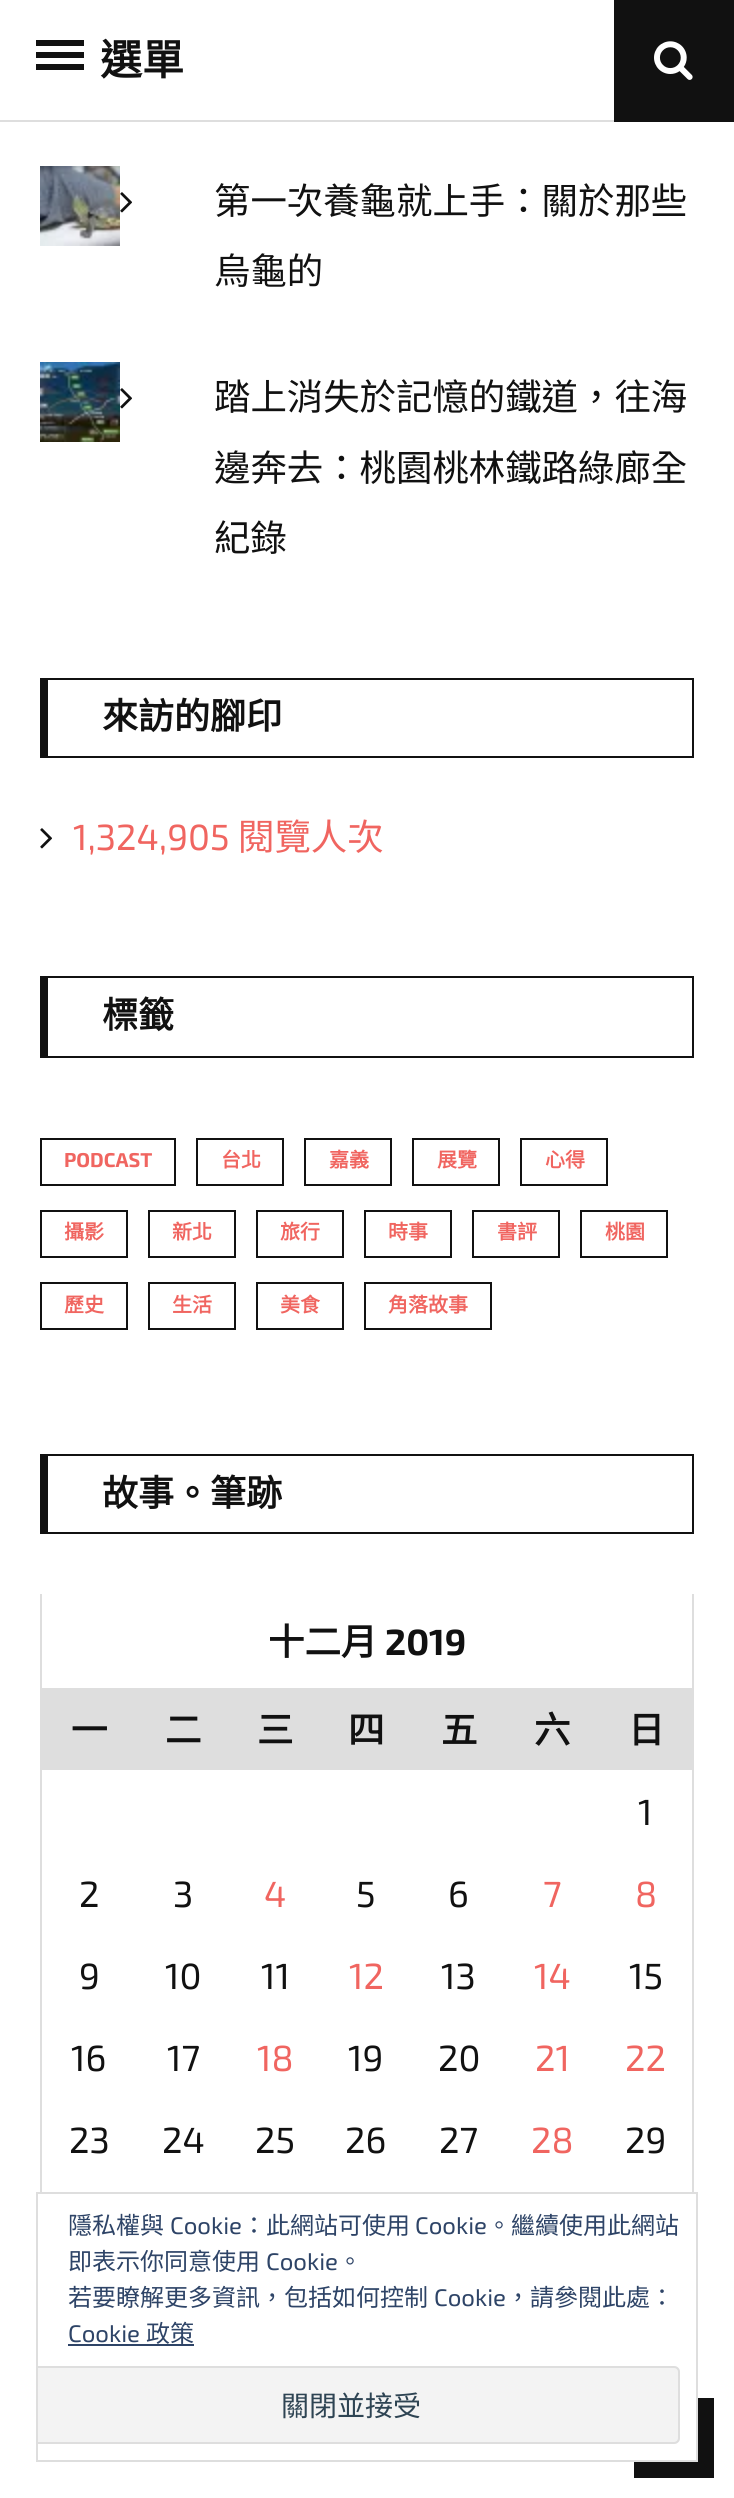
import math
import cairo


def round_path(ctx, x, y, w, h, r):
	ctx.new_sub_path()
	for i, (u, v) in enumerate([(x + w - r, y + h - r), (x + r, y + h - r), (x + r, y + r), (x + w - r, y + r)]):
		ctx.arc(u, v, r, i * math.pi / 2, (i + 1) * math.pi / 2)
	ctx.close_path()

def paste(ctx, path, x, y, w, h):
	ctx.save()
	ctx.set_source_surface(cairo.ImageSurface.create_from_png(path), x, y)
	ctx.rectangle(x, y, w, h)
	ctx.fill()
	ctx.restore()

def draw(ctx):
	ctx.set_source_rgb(1, 1, 1)
	ctx.paint()
	ctx.set_source_rgb(0.871, 0.871, 0.871)
	ctx.rectangle(0, 120, 614, 2)
	ctx.fill()
	ctx.set_source_rgb(0.067, 0.067, 0.067)
	ctx.rectangle(36, 40, 48, 6)
	ctx.rectangle(36, 52, 48, 6)
	ctx.rectangle(36, 64, 48, 6)
	ctx.fill()
	ctx.select_font_face('Noto Sans CJK TC', cairo.FONT_SLANT_NORMAL, cairo.FONT_WEIGHT_BOLD)
	ctx.set_font_size(42)
	ctx.move_to(100, 75)
	ctx.show_text('選單')
	ctx.rectangle(614, 0, 120, 122)
	ctx.fill()
	paste(ctx, 'media/1.png', 654, 41, 39, 39)
	paste(ctx, 'media/2.png', 40, 166, 80, 80)
	paste(ctx, 'media/3.png', 120, 192, 12, 21)
	ctx.select_font_face('Noto Sans CJK TC')
	ctx.set_font_size(36.4)
	ctx.move_to(214, 214)
	ctx.show_text('第一次養龜就上手：關於那些')
	ctx.move_to(214, 284)
	ctx.show_text('烏龜的')
	paste(ctx, 'media/4.png', 40, 362, 80, 80)
	paste(ctx, 'media/3.png', 120, 388, 12, 21)
	for x, y, s in [
		(214, 410, '踏上消失於記憶的鐵道，往海'),
		(214, 481, '邊奔去：桃園桃林鐵路綠廊全'),
		(214, 551, '紀錄'),
	]:
		ctx.move_to(x, y)
		ctx.show_text(s)
	ctx.rectangle(40, 678, 654, 2)
	ctx.rectangle(692, 678, 2, 80)
	ctx.rectangle(40, 756, 654, 2)
	ctx.rectangle(40, 678, 8, 80)
	ctx.fill()
	ctx.select_font_face('Noto Sans CJK TC', cairo.FONT_SLANT_NORMAL, cairo.FONT_WEIGHT_BOLD)
	ctx.set_font_size(36)
	ctx.move_to(102, 729)
	ctx.show_text('來訪的腳印')
	paste(ctx, 'media/3.png', 40, 828, 12, 21)
	ctx.select_font_face('Exo 2')
	ctx.set_font_size(36.4)
	ctx.set_source_rgb(0.941, 0.396, 0.376)
	ctx.move_to(73, 850)
	ctx.show_text('1,324,905')
	ctx.select_font_face('Noto Sans CJK TC')
	ctx.move_to(238, 850)
	ctx.show_text('閱覽人次')
	ctx.set_source_rgb(0.067, 0.067, 0.067)
	ctx.rectangle(40, 976, 654, 2)
	ctx.rectangle(692, 976, 2, 82)
	ctx.rectangle(40, 1056, 654, 2)
	ctx.rectangle(40, 976, 8, 82)
	ctx.fill()
	ctx.select_font_face('Noto Sans CJK TC', cairo.FONT_SLANT_NORMAL, cairo.FONT_WEIGHT_BOLD)
	ctx.set_font_size(36)
	ctx.move_to(102, 1028)
	ctx.show_text('標籤')
	ctx.rectangle(41, 1139, 134, 46)
	ctx.stroke()
	ctx.select_font_face('Exo 2', cairo.FONT_SLANT_NORMAL, cairo.FONT_WEIGHT_BOLD)
	ctx.set_font_size(20)
	ctx.set_source_rgb(0.941, 0.396, 0.376)
	ctx.move_to(64, 1167)
	ctx.show_text('PODCAST')
	ctx.rectangle(197, 1139, 86, 46)
	ctx.set_source_rgb(0.067, 0.067, 0.067)
	ctx.stroke()
	ctx.select_font_face('Noto Sans CJK TC', cairo.FONT_SLANT_NORMAL, cairo.FONT_WEIGHT_BOLD)
	ctx.set_source_rgb(0.941, 0.396, 0.376)
	ctx.move_to(221, 1167)
	ctx.show_text('台北')
	ctx.rectangle(305, 1139, 86, 46)
	ctx.set_source_rgb(0.067, 0.067, 0.067)
	ctx.stroke()
	ctx.set_source_rgb(0.941, 0.396, 0.376)
	ctx.move_to(329, 1167)
	ctx.show_text('嘉義')
	ctx.rectangle(413, 1139, 86, 46)
	ctx.set_source_rgb(0.067, 0.067, 0.067)
	ctx.stroke()
	ctx.set_source_rgb(0.941, 0.396, 0.376)
	ctx.move_to(437, 1167)
	ctx.show_text('展覽')
	ctx.rectangle(521, 1139, 86, 46)
	ctx.set_source_rgb(0.067, 0.067, 0.067)
	ctx.stroke()
	ctx.set_source_rgb(0.941, 0.396, 0.376)
	ctx.move_to(545, 1167)
	ctx.show_text('心得')
	ctx.rectangle(41, 1211, 86, 46)
	ctx.set_source_rgb(0.067, 0.067, 0.067)
	ctx.stroke()
	ctx.set_source_rgb(0.941, 0.396, 0.376)
	ctx.move_to(64, 1239)
	ctx.show_text('攝影')
	ctx.rectangle(149, 1211, 86, 46)
	ctx.set_source_rgb(0.067, 0.067, 0.067)
	ctx.stroke()
	ctx.set_source_rgb(0.941, 0.396, 0.376)
	ctx.move_to(172, 1239)
	ctx.show_text('新北')
	ctx.rectangle(257, 1211, 86, 46)
	ctx.set_source_rgb(0.067, 0.067, 0.067)
	ctx.stroke()
	ctx.set_source_rgb(0.941, 0.396, 0.376)
	ctx.move_to(280, 1239)
	ctx.show_text('旅行')
	ctx.rectangle(365, 1211, 86, 46)
	ctx.set_source_rgb(0.067, 0.067, 0.067)
	ctx.stroke()
	ctx.set_source_rgb(0.941, 0.396, 0.376)
	ctx.move_to(388, 1239)
	ctx.show_text('時事')
	ctx.rectangle(473, 1211, 86, 46)
	ctx.set_source_rgb(0.067, 0.067, 0.067)
	ctx.stroke()
	ctx.set_source_rgb(0.941, 0.396, 0.376)
	ctx.move_to(497, 1239)
	ctx.show_text('書評')
	ctx.rectangle(581, 1211, 86, 46)
	ctx.set_source_rgb(0.067, 0.067, 0.067)
	ctx.stroke()
	ctx.set_source_rgb(0.941, 0.396, 0.376)
	ctx.move_to(605, 1239)
	ctx.show_text('桃園')
	ctx.rectangle(41, 1283, 86, 46)
	ctx.set_source_rgb(0.067, 0.067, 0.067)
	ctx.stroke()
	ctx.set_source_rgb(0.941, 0.396, 0.376)
	ctx.move_to(64, 1312)
	ctx.show_text('歷史')
	ctx.rectangle(149, 1283, 86, 46)
	ctx.set_source_rgb(0.067, 0.067, 0.067)
	ctx.stroke()
	ctx.set_source_rgb(0.941, 0.396, 0.376)
	ctx.move_to(172, 1312)
	ctx.show_text('生活')
	ctx.rectangle(257, 1283, 86, 46)
	ctx.set_source_rgb(0.067, 0.067, 0.067)
	ctx.stroke()
	ctx.set_source_rgb(0.941, 0.396, 0.376)
	ctx.move_to(280, 1312)
	ctx.show_text('美食')
	ctx.rectangle(365, 1283, 126, 46)
	ctx.set_source_rgb(0.067, 0.067, 0.067)
	ctx.stroke()
	ctx.set_source_rgb(0.941, 0.396, 0.376)
	ctx.move_to(388, 1312)
	ctx.show_text('角落故事')
	ctx.set_source_rgb(0.067, 0.067, 0.067)
	ctx.rectangle(40, 1454, 654, 2)
	ctx.rectangle(692, 1454, 2, 80)
	ctx.rectangle(40, 1532, 654, 2)
	ctx.rectangle(40, 1454, 8, 80)
	ctx.fill()
	ctx.set_font_size(36)
	ctx.move_to(102, 1506)
	ctx.show_text('故事。筆跡')
	ctx.set_source_rgb(0.871, 0.871, 0.871)
	ctx.rectangle(692, 1594, 2, 598)
	ctx.fill()
	ctx.rectangle(40, 1594, 2, 598)
	ctx.fill()
	ctx.set_font_size(36.4)
	ctx.set_source_rgb(0.067, 0.067, 0.067)
	ctx.move_to(268, 1655)
	ctx.show_text('十二月')
	ctx.select_font_face('Exo 2', cairo.FONT_SLANT_NORMAL, cairo.FONT_WEIGHT_BOLD)
	ctx.move_to(385, 1655)
	ctx.show_text('2019')
	ctx.set_source_rgb(0.871, 0.871, 0.871)
	ctx.rectangle(42, 1688, 650, 82)
	ctx.fill()
	ctx.select_font_face('Noto Sans CJK TC', cairo.FONT_SLANT_NORMAL, cairo.FONT_WEIGHT_BOLD)
	ctx.set_source_rgb(0.067, 0.067, 0.067)
	for x, y, s in [
		(71, 1743, '一'),
		(165, 1743, '二'),
		(257, 1743, '三'),
		(348, 1743, '四'),
		(441, 1743, '五'),
		(534, 1743, '六'),
		(628, 1743, '日'),
	]:
		ctx.move_to(x, y)
		ctx.show_text(s)
	ctx.select_font_face('Exo 2')
	for x, y, s in [
		(638, 1825, '1'),
		(79, 1907, '2'),
		(173, 1907, '3'),
	]:
		ctx.move_to(x, y)
		ctx.show_text(s)
	ctx.set_source_rgb(0.941, 0.396, 0.376)
	ctx.move_to(264, 1907)
	ctx.show_text('4')
	ctx.set_source_rgb(0.067, 0.067, 0.067)
	ctx.move_to(356, 1907)
	ctx.show_text('5')
	ctx.move_to(448, 1907)
	ctx.show_text('6')
	ctx.set_source_rgb(0.941, 0.396, 0.376)
	ctx.move_to(543, 1907)
	ctx.show_text('7')
	ctx.move_to(635, 1907)
	ctx.show_text('8')
	ctx.set_source_rgb(0.067, 0.067, 0.067)
	for x, y, s in [
		(79, 1989, '9'),
		(165, 1989, '10'),
		(261, 1989, '11'),
	]:
		ctx.move_to(x, y)
		ctx.show_text(s)
	ctx.set_source_rgb(0.941, 0.396, 0.376)
	ctx.move_to(349, 1989)
	ctx.show_text('12')
	ctx.set_source_rgb(0.067, 0.067, 0.067)
	ctx.move_to(441, 1989)
	ctx.show_text('13')
	ctx.set_source_rgb(0.941, 0.396, 0.376)
	ctx.move_to(534, 1989)
	ctx.show_text('14')
	ctx.set_source_rgb(0.067, 0.067, 0.067)
	for x, y, s in [
		(629, 1989, '15'),
		(71, 2071, '16'),
		(167, 2071, '17'),
	]:
		ctx.move_to(x, y)
		ctx.show_text(s)
	ctx.set_source_rgb(0.941, 0.396, 0.376)
	ctx.move_to(257, 2071)
	ctx.show_text('18')
	ctx.set_source_rgb(0.067, 0.067, 0.067)
	ctx.move_to(348, 2071)
	ctx.show_text('19')
	ctx.move_to(438, 2071)
	ctx.show_text('20')
	ctx.set_source_rgb(0.941, 0.396, 0.376)
	ctx.move_to(535, 2071)
	ctx.show_text('21')
	ctx.move_to(625, 2071)
	ctx.show_text('22')
	ctx.set_source_rgb(0.067, 0.067, 0.067)
	for x, y, s in [
		(69, 2153, '23'),
		(162, 2153, '24'),
		(255, 2153, '25'),
		(345, 2153, '26'),
		(439, 2153, '27'),
	]:
		ctx.move_to(x, y)
		ctx.show_text(s)
	ctx.set_source_rgb(0.941, 0.396, 0.376)
	ctx.move_to(531, 2153)
	ctx.show_text('28')
	ctx.set_source_rgb(0.067, 0.067, 0.067)
	ctx.move_to(625, 2153)
	ctx.show_text('29')
	ctx.rectangle(634, 2398, 80, 80)
	ctx.fill()
	ctx.set_source_rgb(1, 1, 1)
	ctx.rectangle(634, 2398, 62, 62)
	ctx.fill()
	ctx.rectangle(37, 2193, 660, 268)
	ctx.set_source_rgb(0.871, 0.871, 0.871)
	ctx.stroke()
	ctx.select_font_face('Noto Sans CJK TC')
	ctx.set_font_size(24)
	ctx.set_source_rgb(0.18, 0.267, 0.404)
	ctx.move_to(68, 2234)
	ctx.show_text('隱私權與')
	ctx.select_font_face('Exo 2')
	ctx.move_to(170, 2234)
	ctx.show_text('Cookie')
	ctx.select_font_face('Noto Sans CJK TC')
	ctx.move_to(242, 2234)
	ctx.show_text('：此網站可使用')
	ctx.select_font_face('Exo 2')
	ctx.move_to(415, 2234)
	ctx.show_text('Cookie')
	ctx.select_font_face('Noto Sans CJK TC')
	ctx.move_to(487, 2234)
	ctx.show_text('。繼續使用此網站')
	ctx.move_to(68, 2270)
	ctx.show_text('即表示你同意使用')
	ctx.select_font_face('Exo 2')
	ctx.move_to(266, 2270)
	ctx.show_text('Cookie')
	ctx.select_font_face('Noto Sans CJK TC')
	ctx.move_to(338, 2270)
	ctx.show_text('。')
	ctx.move_to(68, 2306)
	ctx.show_text('若要瞭解更多資訊，包括如何控制')
	ctx.select_font_face('Exo 2')
	ctx.move_to(434, 2306)
	ctx.show_text('Cookie')
	ctx.select_font_face('Noto Sans CJK TC')
	ctx.move_to(506, 2306)
	ctx.show_text('，請參閱此處：')
	ctx.select_font_face('Exo 2')
	ctx.move_to(68, 2342)
	ctx.show_text('Cookie')
	ctx.rectangle(68, 2344, 126, 2)
	ctx.fill()
	ctx.select_font_face('Noto Sans CJK TC')
	ctx.move_to(146, 2342)
	ctx.show_text('政策')
	ctx.set_source_rgb(0.953, 0.953, 0.953)
	ctx.new_path()
	ctx.move_to(38, 2366)
	ctx.line_to(674, 2366)
	ctx.curve_to(677.5, 2366, 680, 2368.5, 680, 2372)
	ctx.line_to(680, 2438)
	ctx.curve_to(680, 2441.5, 677.5, 2444, 674, 2444)
	ctx.line_to(38, 2444)
	ctx.close_path()
	ctx.fill()
	ctx.save()
	ctx.rectangle(38, 2194, 658, 266)
	ctx.clip()
	round_path(ctx, 23, 2367, 656, 76, 5)
	ctx.set_source_rgb(0.871, 0.871, 0.871)
	ctx.stroke()
	ctx.restore()
	ctx.set_font_size(28)
	ctx.set_source_rgb(0.18, 0.267, 0.325)
	ctx.move_to(281, 2416)
	ctx.show_text('關閉並接受')


surface = cairo.ImageSurface(cairo.FORMAT_RGB24, 734, 2498)
ctx = cairo.Context(surface)
options = cairo.FontOptions()
options.set_hint_metrics(cairo.HINT_METRICS_OFF)
options.set_hint_style(cairo.HINT_STYLE_NONE)
ctx.set_font_options(options)
ctx.set_miter_limit(4)
draw(ctx)
surface.write_to_png('image.png')
